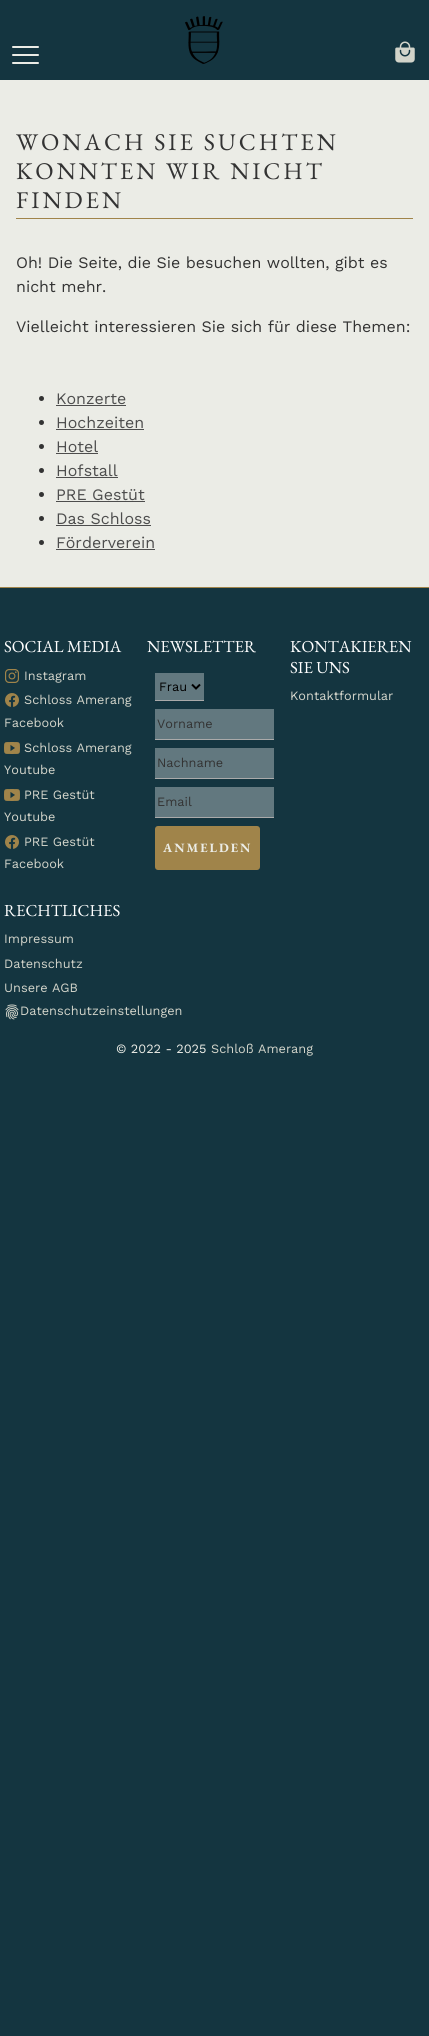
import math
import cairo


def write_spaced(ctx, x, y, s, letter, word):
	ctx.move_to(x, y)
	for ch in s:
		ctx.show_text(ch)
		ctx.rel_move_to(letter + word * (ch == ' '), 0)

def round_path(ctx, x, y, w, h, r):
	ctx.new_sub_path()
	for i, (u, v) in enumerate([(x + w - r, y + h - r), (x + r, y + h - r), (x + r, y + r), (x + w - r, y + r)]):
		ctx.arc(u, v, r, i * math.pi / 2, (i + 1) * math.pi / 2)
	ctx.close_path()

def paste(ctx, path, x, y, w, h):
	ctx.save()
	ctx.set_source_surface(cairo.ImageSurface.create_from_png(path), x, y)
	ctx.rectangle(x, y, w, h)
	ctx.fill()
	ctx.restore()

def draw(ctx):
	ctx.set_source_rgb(0.082, 0.208, 0.251)
	ctx.paint()
	ctx.set_source_rgb(0.918, 0.922, 0.902)
	round_path(ctx, 12, 46, 27, 2, 1)
	ctx.fill()
	round_path(ctx, 12, 54, 27, 2, 1)
	ctx.fill()
	round_path(ctx, 12, 62, 27, 2, 1)
	ctx.fill()
	paste(ctx, 'media/1.png', 185, 16, 38, 48)
	paste(ctx, 'media/2.png', 395, 41, 20, 22)
	ctx.rectangle(0, 80, 429, 507)
	ctx.fill()
	ctx.set_source_rgb(0.627, 0.518, 0.29)
	ctx.rectangle(16, 218, 397, 1)
	ctx.fill()
	ctx.select_font_face('EB Garamond')
	ctx.set_font_size(24)
	ctx.set_source_rgb(0.2, 0.2, 0.2)
	for x, y, s in [
		(16, 150, 'WONACH SIE SUCHTEN'),
		(16, 179, 'KONNTEN WIR NICHT'),
		(16, 208, 'FINDEN'),
	]:
		write_spaced(ctx, x, y, s, 3, 0)
	ctx.select_font_face('Work Sans')
	ctx.set_font_size(16)
	for x, y, s in [
		(16, 268, 'Oh! Die Seite, die Sie besuchen wollten, gibt es'),
		(16, 292, 'nicht mehr.'),
		(16, 332, 'Vielleicht interessieren Sie sich für diese Themen:'),
	]:
		ctx.move_to(x, y)
		ctx.show_text(s)
	ctx.new_path()
	ctx.arc(41.5, 398.5, 2.5, 0, 2 * math.pi)
	ctx.fill()
	ctx.set_source_rgb(0.302, 0.302, 0.302)
	ctx.move_to(56, 404)
	ctx.show_text('Konzerte')
	ctx.rectangle(56, 405, 70, 1)
	ctx.fill()
	ctx.set_source_rgb(0.2, 0.2, 0.2)
	ctx.arc(41.5, 422.5, 2.5, 0, 2 * math.pi)
	ctx.fill()
	ctx.set_source_rgb(0.302, 0.302, 0.302)
	ctx.move_to(56, 428)
	ctx.show_text('Hochzeiten')
	ctx.rectangle(56, 429, 88, 1)
	ctx.fill()
	ctx.set_source_rgb(0.2, 0.2, 0.2)
	ctx.arc(41.5, 446.5, 2.5, 0, 2 * math.pi)
	ctx.fill()
	ctx.set_source_rgb(0.302, 0.302, 0.302)
	ctx.move_to(56, 452)
	ctx.show_text('Hotel')
	ctx.rectangle(56, 453, 42, 1)
	ctx.fill()
	ctx.set_source_rgb(0.2, 0.2, 0.2)
	ctx.arc(41.5, 470.5, 2.5, 0, 2 * math.pi)
	ctx.fill()
	ctx.set_source_rgb(0.302, 0.302, 0.302)
	ctx.move_to(56, 476)
	ctx.show_text('Hofstall')
	ctx.rectangle(56, 477, 62, 1)
	ctx.fill()
	ctx.set_source_rgb(0.2, 0.2, 0.2)
	ctx.arc(41.5, 494.5, 2.5, 0, 2 * math.pi)
	ctx.fill()
	ctx.set_source_rgb(0.302, 0.302, 0.302)
	ctx.move_to(56, 500)
	ctx.show_text('PRE Gestüt')
	ctx.rectangle(56, 501, 89, 1)
	ctx.fill()
	ctx.set_source_rgb(0.2, 0.2, 0.2)
	ctx.arc(41.5, 518.5, 2.5, 0, 2 * math.pi)
	ctx.fill()
	ctx.set_source_rgb(0.302, 0.302, 0.302)
	ctx.move_to(56, 524)
	ctx.show_text('Das Schloss')
	ctx.rectangle(56, 525, 95, 1)
	ctx.fill()
	ctx.set_source_rgb(0.2, 0.2, 0.2)
	ctx.arc(41.5, 542.5, 2.5, 0, 2 * math.pi)
	ctx.fill()
	ctx.set_source_rgb(0.302, 0.302, 0.302)
	ctx.move_to(56, 548)
	ctx.show_text('Förderverein')
	ctx.rectangle(56, 549, 99, 1)
	ctx.fill()
	ctx.set_source_rgb(0.627, 0.518, 0.29)
	ctx.rectangle(0, 587, 429, 1)
	ctx.fill()
	ctx.select_font_face('EB Garamond')
	ctx.set_font_size(16.75)
	ctx.set_source_rgb(1, 1, 1)
	ctx.move_to(4, 652)
	ctx.show_text('SOCIAL MEDIA')
	paste(ctx, 'media/3.png', 5, 669, 14, 14)
	ctx.select_font_face('Work Sans')
	ctx.set_font_size(12.75)
	ctx.set_source_rgb(0.824, 0.831, 0.792)
	ctx.move_to(24, 680)
	ctx.show_text('Instagram')
	paste(ctx, 'media/4.png', 5, 693, 14, 14)
	ctx.move_to(24, 704)
	ctx.show_text('Schloss Amerang')
	ctx.move_to(4, 727)
	ctx.show_text('Facebook')
	paste(ctx, 'media/5.png', 4, 742, 16, 12)
	ctx.move_to(24, 752)
	ctx.show_text('Schloss Amerang')
	ctx.move_to(4, 774)
	ctx.show_text('Youtube')
	paste(ctx, 'media/5.png', 4, 789, 16, 12)
	ctx.move_to(24, 799)
	ctx.show_text('PRE Gestüt')
	ctx.move_to(4, 821)
	ctx.show_text('Youtube')
	paste(ctx, 'media/4.png', 5, 835, 14, 14)
	ctx.move_to(24, 846)
	ctx.show_text('PRE Gestüt')
	ctx.move_to(4, 868)
	ctx.show_text('Facebook')
	ctx.select_font_face('EB Garamond')
	ctx.set_font_size(16.75)
	ctx.set_source_rgb(1, 1, 1)
	ctx.move_to(147, 652)
	ctx.show_text('NEWSLETTER')
	ctx.set_source_rgb(0.384, 0.471, 0.498)
	ctx.rectangle(155, 673, 49, 27)
	ctx.fill()
	ctx.set_source_rgb(0.667, 0.667, 0.667)
	ctx.rectangle(155, 700, 49, 1)
	ctx.fill()
	ctx.new_path()
	ctx.move_to(192, 684.5)
	ctx.line_to(196, 688.5)
	ctx.line_to(200, 684.5)
	ctx.set_source_rgb(0, 0, 0)
	ctx.stroke()
	ctx.select_font_face('Work Sans')
	ctx.set_font_size(12.75)
	ctx.move_to(159, 691)
	ctx.show_text('Frau')
	ctx.set_source_rgb(0.384, 0.471, 0.498)
	ctx.rectangle(155, 709, 119, 30)
	ctx.fill()
	ctx.set_source_rgb(0.667, 0.667, 0.667)
	ctx.rectangle(155, 739, 119, 1)
	ctx.fill()
	ctx.set_source_rgb(0.2, 0.2, 0.2)
	ctx.move_to(157, 728)
	ctx.show_text('Vorname')
	ctx.set_source_rgb(0.384, 0.471, 0.498)
	ctx.rectangle(155, 748, 119, 30)
	ctx.fill()
	ctx.set_source_rgb(0.667, 0.667, 0.667)
	ctx.rectangle(155, 778, 119, 1)
	ctx.fill()
	ctx.set_source_rgb(0.2, 0.2, 0.2)
	ctx.move_to(157, 767)
	ctx.show_text('Nachname')
	ctx.set_source_rgb(0.384, 0.471, 0.498)
	ctx.rectangle(155, 787, 119, 30)
	ctx.fill()
	ctx.set_source_rgb(0.667, 0.667, 0.667)
	ctx.rectangle(155, 817, 119, 1)
	ctx.fill()
	ctx.set_source_rgb(0.2, 0.2, 0.2)
	ctx.move_to(157, 806)
	ctx.show_text('Email')
	ctx.set_source_rgb(0.627, 0.518, 0.29)
	round_path(ctx, 155, 826, 105, 44, 3)
	ctx.fill()
	ctx.select_font_face('EB Garamond', cairo.FONT_SLANT_NORMAL, cairo.FONT_WEIGHT_BOLD)
	ctx.set_source_rgb(0.918, 0.922, 0.902)
	write_spaced(ctx, 163, 852, 'ANMELDEN', 2, 0)
	ctx.select_font_face('EB Garamond')
	ctx.set_font_size(16.75)
	ctx.set_source_rgb(1, 1, 1)
	ctx.move_to(290, 652)
	ctx.show_text('KONTAKIEREN')
	ctx.move_to(290, 673)
	ctx.show_text('SIE UNS')
	ctx.select_font_face('Work Sans')
	ctx.set_font_size(12.75)
	ctx.set_source_rgb(0.824, 0.831, 0.792)
	ctx.move_to(290, 700)
	ctx.show_text('Kontaktformular')
	ctx.select_font_face('EB Garamond')
	ctx.set_font_size(16.75)
	ctx.set_source_rgb(1, 1, 1)
	ctx.move_to(4, 916)
	ctx.show_text('RECHTLICHES')
	ctx.select_font_face('Work Sans')
	ctx.set_font_size(12.75)
	ctx.set_source_rgb(0.824, 0.831, 0.792)
	for x, y, s in [
		(4, 943, 'Impressum'),
		(4, 968, 'Datenschutz'),
		(4, 992, 'Unsere AGB'),
	]:
		ctx.move_to(x, y)
		ctx.show_text(s)
	paste(ctx, 'media/6.png', 5, 1004, 14, 16)
	ctx.move_to(20, 1015)
	ctx.show_text('Datenschutzeinstellungen')
	ctx.set_source_rgb(0.918, 0.922, 0.902)
	ctx.move_to(116, 1053)
	ctx.show_text('© 2022 - 2025')
	ctx.set_source_rgb(0.824, 0.831, 0.792)
	ctx.move_to(211, 1053)
	ctx.show_text('Schloß Amerang')


surface = cairo.ImageSurface(cairo.FORMAT_RGB24, 429, 2036)
ctx = cairo.Context(surface)
options = cairo.FontOptions()
options.set_hint_metrics(cairo.HINT_METRICS_OFF)
options.set_hint_style(cairo.HINT_STYLE_NONE)
ctx.set_font_options(options)
ctx.set_miter_limit(4)
draw(ctx)
surface.write_to_png('image.png')
